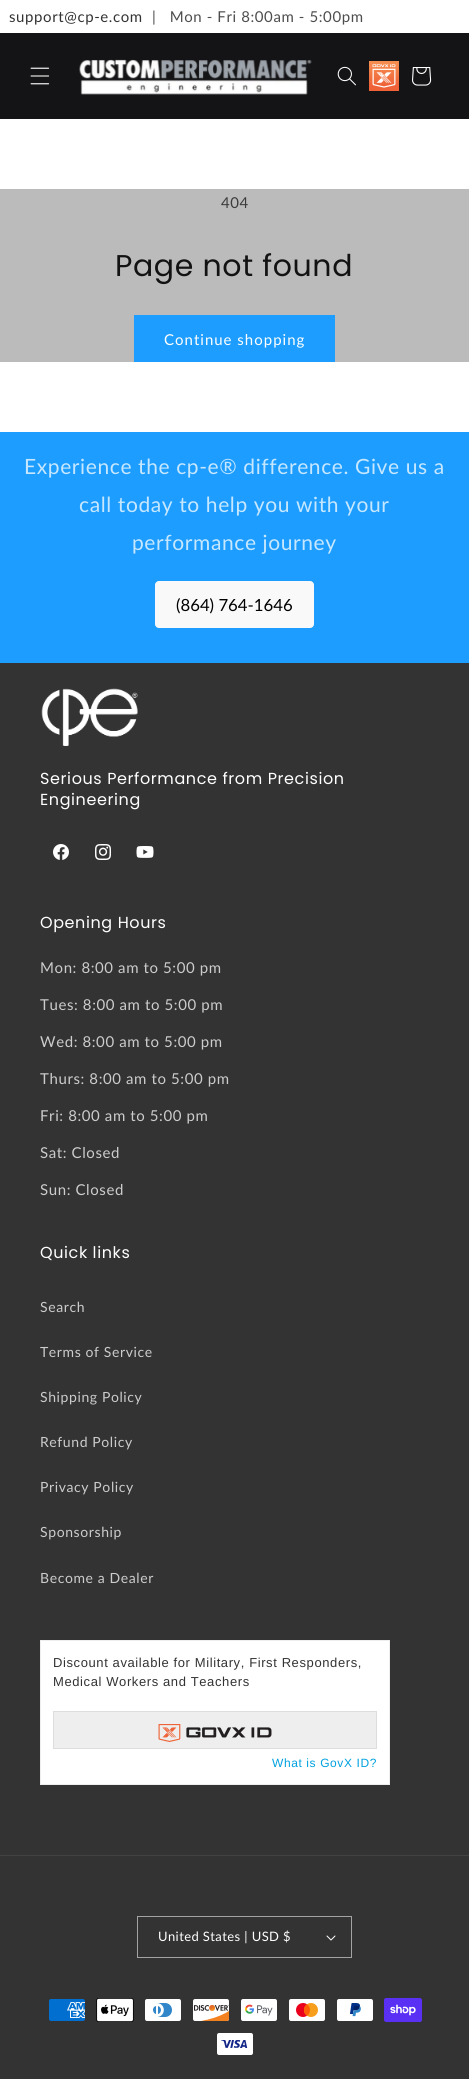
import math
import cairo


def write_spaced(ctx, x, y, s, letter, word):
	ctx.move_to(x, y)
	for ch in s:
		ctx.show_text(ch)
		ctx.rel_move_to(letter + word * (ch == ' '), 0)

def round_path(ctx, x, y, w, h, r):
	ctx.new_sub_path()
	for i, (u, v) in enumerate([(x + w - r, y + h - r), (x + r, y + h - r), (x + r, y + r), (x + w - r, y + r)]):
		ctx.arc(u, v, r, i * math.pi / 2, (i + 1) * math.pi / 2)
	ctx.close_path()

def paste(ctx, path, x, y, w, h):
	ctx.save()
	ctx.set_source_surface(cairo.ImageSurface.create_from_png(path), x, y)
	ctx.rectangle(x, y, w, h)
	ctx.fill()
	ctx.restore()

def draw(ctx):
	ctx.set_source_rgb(1, 1, 1)
	ctx.paint()
	ctx.select_font_face('Lato')
	ctx.set_font_size(15)
	ctx.set_source_rgb(0.2, 0.2, 0.2)
	write_spaced(ctx, 9, 22, 'support@cp-e.com', 0.6, 0)
	ctx.set_source_rgb(0.302, 0.302, 0.302)
	write_spaced(ctx, 152, 22, '|   Mon - Fri 8:00am - 5:00pm', 0.6, 0)
	ctx.set_source_rgb(0.082, 0.082, 0.086)
	ctx.rectangle(0, 33, 469, 86)
	ctx.fill()
	paste(ctx, 'media/1.png', 30, 67, 20, 18)
	paste(ctx, 'media/2.png', 79, 59, 233, 36)
	paste(ctx, 'media/3.png', 337, 66, 19, 20)
	paste(ctx, 'media/4.png', 369, 61, 30, 30)
	paste(ctx, 'media/5.png', 412, 67, 20, 19)
	ctx.set_source_rgb(0.733, 0.733, 0.733)
	ctx.rectangle(0, 189, 469, 173)
	ctx.fill()
	ctx.set_source_rgb(0.235, 0.235, 0.235)
	write_spaced(ctx, 221, 208, '404', 0.6, 0)
	ctx.select_font_face('Poppins')
	ctx.set_font_size(30)
	ctx.set_source_rgb(0.071, 0.071, 0.071)
	write_spaced(ctx, 115, 276, 'Page not found', 0.6, 0)
	ctx.set_source_rgb(0.11, 0.616, 1)
	ctx.rectangle(134, 315, 201, 47)
	ctx.fill()
	ctx.select_font_face('Lato')
	ctx.set_font_size(15)
	ctx.set_source_rgb(1, 1, 1)
	write_spaced(ctx, 164, 345, 'Continue shopping', 1, 0)
	ctx.set_source_rgb(0.11, 0.616, 1)
	ctx.rectangle(0, 432, 469, 231)
	ctx.fill()
	ctx.set_font_size(21)
	ctx.set_source_rgb(0.776, 0.906, 1)
	for x, y, s in [
		(24, 474, 'Experience the cp-e® difference. Give us a'),
		(79, 512, 'call today to help you with your'),
		(132, 550, 'performance journey'),
	]:
		write_spaced(ctx, x, y, s, 0.6, 0)
	ctx.set_source_rgb(0.973, 0.976, 0.98)
	round_path(ctx, 155.5, 581.5, 158, 46, 3.5)
	ctx.fill_preserve()
	ctx.set_line_width(1)
	ctx.stroke()
	ctx.set_font_size(16.75)
	ctx.set_source_rgb(0, 0, 0)
	ctx.move_to(176, 611)
	ctx.show_text('(864) 764-1646')
	ctx.set_source_rgb(0.2, 0.2, 0.2)
	ctx.rectangle(0, 663, 469, 1416)
	ctx.fill()
	paste(ctx, 'media/6.png', 41, 688, 97, 58)
	ctx.select_font_face('Poppins')
	ctx.set_font_size(16)
	ctx.set_source_rgb(1, 1, 1)
	write_spaced(ctx, 40, 784, 'Serious Performance from Precision', 0.6, 0)
	write_spaced(ctx, 40, 805, 'Engineering', 0.6, 0)
	paste(ctx, 'media/7.png', 53, 844, 16, 16)
	paste(ctx, 'media/8.png', 95, 844, 16, 16)
	paste(ctx, 'media/9.png', 136, 846, 18, 12)
	write_spaced(ctx, 40, 928, 'Opening Hours', 0.6, 0)
	ctx.select_font_face('Lato')
	ctx.set_font_size(15)
	ctx.set_source_rgb(0.8, 0.8, 0.8)
	for x, y, s in [
		(40, 973, 'Mon: 8:00 am to 5:00 pm'),
		(40, 1010, 'Tues: 8:00 am to 5:00 pm'),
		(40, 1047, 'Wed: 8:00 am to 5:00 pm'),
		(40, 1084, 'Thurs: 8:00 am to 5:00 pm'),
		(40, 1121, 'Fri: 8:00 am to 5:00 pm'),
		(40, 1158, 'Sat: Closed'),
		(40, 1195, 'Sun: Closed'),
	]:
		write_spaced(ctx, x, y, s, 0.6, 0)
	ctx.select_font_face('Poppins')
	ctx.set_font_size(16)
	ctx.set_source_rgb(1, 1, 1)
	write_spaced(ctx, 40, 1258, 'Quick links', 0.6, 0)
	ctx.select_font_face('Lato')
	ctx.set_font_size(14)
	ctx.set_source_rgb(0.8, 0.8, 0.8)
	for x, y, s in [
		(40, 1312, 'Search'),
		(40, 1357, 'Terms of Service'),
		(40, 1402, 'Shipping Policy'),
		(40, 1447, 'Refund Policy'),
		(40, 1492, 'Privacy Policy'),
		(40, 1537, 'Sponsorship'),
		(40, 1583, 'Become a Dealer'),
	]:
		write_spaced(ctx, x, y, s, 0.6, 0)
	ctx.set_source_rgb(1, 1, 1)
	ctx.rectangle(40.5, 1640.5, 349, 144)
	ctx.fill_preserve()
	ctx.set_source_rgb(0.933, 0.933, 0.933)
	ctx.stroke()
	ctx.select_font_face('Liberation Sans')
	ctx.set_font_size(13)
	ctx.set_source_rgb(0.2, 0.2, 0.2)
	write_spaced(ctx, 53, 1667, 'Discount available for Military, First Responders,', 0.6, 0)
	write_spaced(ctx, 53, 1686, 'Medical Workers and Teachers', 0.6, 0)
	ctx.set_source_rgb(0.933, 0.933, 0.933)
	ctx.rectangle(53.5, 1711.5, 323, 37)
	ctx.fill_preserve()
	ctx.set_source_rgb(0.867, 0.867, 0.867)
	ctx.stroke()
	paste(ctx, 'media/10.png', 158, 1724, 114, 18)
	ctx.set_font_size(12)
	ctx.set_source_rgb(0, 0.631, 0.875)
	write_spaced(ctx, 272, 1767, 'What is GovX ID?', 0.6, 0)
	ctx.set_source_rgb(0.263, 0.263, 0.263)
	ctx.rectangle(0, 1855, 469, 1)
	ctx.fill()
	paste(ctx, 'media/11.png', 326, 1935, 10, 6)
	ctx.rectangle(137.5, 1916.5, 214, 41)
	ctx.set_source_rgb(0.639, 0.639, 0.639)
	ctx.stroke()
	ctx.select_font_face('Lato')
	ctx.set_font_size(13)
	ctx.set_source_rgb(1, 1, 1)
	write_spaced(ctx, 158, 1941, 'United States | USD $', 0.4, 0)
	paste(ctx, 'media/12.png', 49, 1999, 36, 22)
	paste(ctx, 'media/13.png', 96, 1998, 38, 24)
	paste(ctx, 'media/14.png', 145, 1999, 36, 22)
	paste(ctx, 'media/15.png', 193, 1999, 36, 22)
	paste(ctx, 'media/16.png', 241, 1999, 36, 22)
	paste(ctx, 'media/17.png', 289, 1999, 36, 22)
	paste(ctx, 'media/18.png', 337, 1999, 36, 22)
	paste(ctx, 'media/19.png', 384, 1998, 38, 24)
	paste(ctx, 'media/20.png', 217, 2033, 36, 22)


surface = cairo.ImageSurface(cairo.FORMAT_RGB24, 469, 2079)
ctx = cairo.Context(surface)
options = cairo.FontOptions()
options.set_hint_metrics(cairo.HINT_METRICS_OFF)
options.set_hint_style(cairo.HINT_STYLE_NONE)
ctx.set_font_options(options)
ctx.set_miter_limit(4)
draw(ctx)
surface.write_to_png('image.png')
